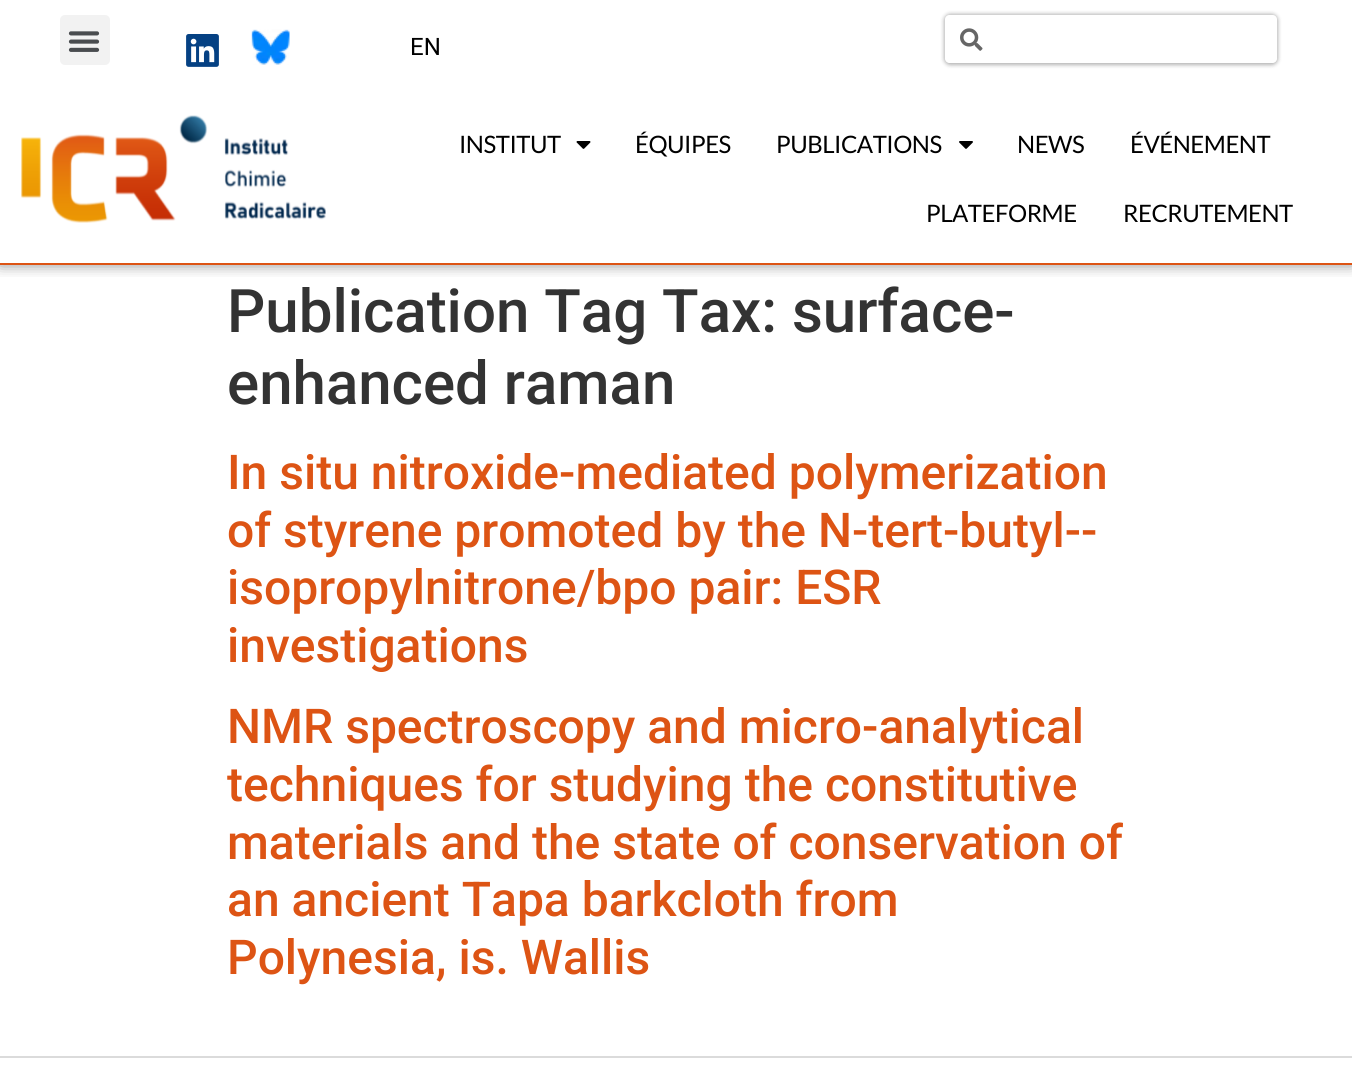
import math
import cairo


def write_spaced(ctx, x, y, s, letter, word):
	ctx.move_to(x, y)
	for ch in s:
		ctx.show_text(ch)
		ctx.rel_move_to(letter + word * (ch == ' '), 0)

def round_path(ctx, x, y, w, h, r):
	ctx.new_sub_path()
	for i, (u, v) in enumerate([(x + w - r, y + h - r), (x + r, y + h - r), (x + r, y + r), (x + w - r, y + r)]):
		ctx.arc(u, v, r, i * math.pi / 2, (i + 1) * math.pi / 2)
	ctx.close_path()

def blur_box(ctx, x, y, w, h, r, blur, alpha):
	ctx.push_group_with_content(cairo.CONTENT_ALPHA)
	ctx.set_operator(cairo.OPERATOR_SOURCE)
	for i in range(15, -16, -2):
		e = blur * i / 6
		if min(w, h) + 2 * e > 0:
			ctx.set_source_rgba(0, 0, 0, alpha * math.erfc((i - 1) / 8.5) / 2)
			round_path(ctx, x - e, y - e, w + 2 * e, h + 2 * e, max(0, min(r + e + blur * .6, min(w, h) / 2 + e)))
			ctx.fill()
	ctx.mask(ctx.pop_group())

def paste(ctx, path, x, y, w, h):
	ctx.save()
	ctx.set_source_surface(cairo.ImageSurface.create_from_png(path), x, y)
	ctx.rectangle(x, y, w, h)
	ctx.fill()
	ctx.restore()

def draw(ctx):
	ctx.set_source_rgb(1, 1, 1)
	ctx.paint()
	ctx.save()
	ctx.rectangle(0, 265, 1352, 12)
	ctx.clip()
	ctx.set_source_rgb(0, 0, 0)
	blur_box(ctx, 0, 0, 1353, 264, 0, 7.5, 0.5)
	ctx.restore()
	ctx.set_source_rgb(0.867, 0.329, 0.082)
	ctx.rectangle(0, 263, 1352, 2)
	ctx.fill()
	ctx.set_source_rgb(0.949, 0.949, 0.949)
	round_path(ctx, 60, 15, 50, 50, 5)
	ctx.fill()
	paste(ctx, 'media/1.png', 68, 31, 32, 21)
	paste(ctx, 'media/2.png', 186, 34, 33, 33)
	paste(ctx, 'media/3.png', 251, 29, 39, 36)
	ctx.select_font_face('Roboto')
	ctx.set_font_size(24)
	ctx.set_source_rgb(0, 0, 0)
	ctx.move_to(410, 55)
	ctx.show_text('EN')
	ctx.save()
	ctx.set_fill_rule(cairo.FILL_RULE_EVEN_ODD)
	ctx.new_path()
	ctx.move_to(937, 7)
	ctx.line_to(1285, 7)
	ctx.line_to(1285, 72)
	ctx.line_to(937, 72)
	ctx.close_path()
	ctx.move_to(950, 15)
	ctx.line_to(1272, 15)
	ctx.curve_to(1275, 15, 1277, 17, 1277, 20)
	ctx.line_to(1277, 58)
	ctx.curve_to(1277, 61, 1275, 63, 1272, 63)
	ctx.line_to(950, 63)
	ctx.curve_to(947, 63, 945, 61, 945, 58)
	ctx.line_to(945, 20)
	ctx.curve_to(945, 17, 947, 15, 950, 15)
	ctx.close_path()
	ctx.clip()
	ctx.set_source_rgb(0, 0, 0)
	blur_box(ctx, 944, 14, 334, 51, 6, 2, 0.3)
	ctx.restore()
	paste(ctx, 'media/4.png', 960, 28, 23, 23)
	paste(ctx, 'media/5.png', 21, 115, 305, 108)
	ctx.select_font_face('Lato')
	write_spaced(ctx, 459, 153, 'INSTITUT', -0.5, 0)
	paste(ctx, 'media/6.png', 576, 141, 15, 8)
	write_spaced(ctx, 635, 153, 'ÉQUIPES', -0.5, 0)
	write_spaced(ctx, 776, 153, 'PUBLICATIONS', -0.5, 0)
	paste(ctx, 'media/7.png', 959, 141, 14, 8)
	for x, y, s in [
		(1017, 153, 'NEWS'),
		(1130, 153, 'ÉVÉNEMENT'),
		(926, 222, 'PLATEFORME'),
		(1123, 222, 'RECRUTEMENT'),
	]:
		write_spaced(ctx, x, y, s, -0.5, 0)
	ctx.select_font_face('Roboto Medium')
	ctx.set_font_size(60)
	ctx.set_source_rgb(0.2, 0.2, 0.2)
	ctx.move_to(227, 332)
	ctx.show_text('Publication Tag Tax: surface-')
	ctx.move_to(227, 404)
	ctx.show_text('enhanced raman')
	ctx.set_font_size(48)
	ctx.set_source_rgb(0.867, 0.329, 0.082)
	for x, y, s in [
		(227, 489, 'In situ nitroxide-mediated polymerization'),
		(227, 547, 'of styrene promoted by the N-tert-butyl--'),
		(227, 604, 'isopropylnitrone/bpo pair: ESR'),
		(227, 662, 'investigations'),
		(227, 743, 'NMR spectroscopy and micro-analytical'),
		(227, 801, 'techniques for studying the constitutive'),
		(227, 859, 'materials and the state of conservation of'),
		(227, 916, 'an ancient Tapa barkcloth from'),
		(227, 974, 'Polynesia, is. Wallis'),
	]:
		ctx.move_to(x, y)
		ctx.show_text(s)
	ctx.set_source_rgb(0.859, 0.859, 0.859)
	ctx.rectangle(0, 1056, 1352, 2)
	ctx.fill()


surface = cairo.ImageSurface(cairo.FORMAT_RGB24, 1352, 1080)
ctx = cairo.Context(surface)
options = cairo.FontOptions()
options.set_hint_metrics(cairo.HINT_METRICS_OFF)
options.set_hint_style(cairo.HINT_STYLE_NONE)
ctx.set_font_options(options)
ctx.set_miter_limit(4)
draw(ctx)
surface.write_to_png('image.png')
